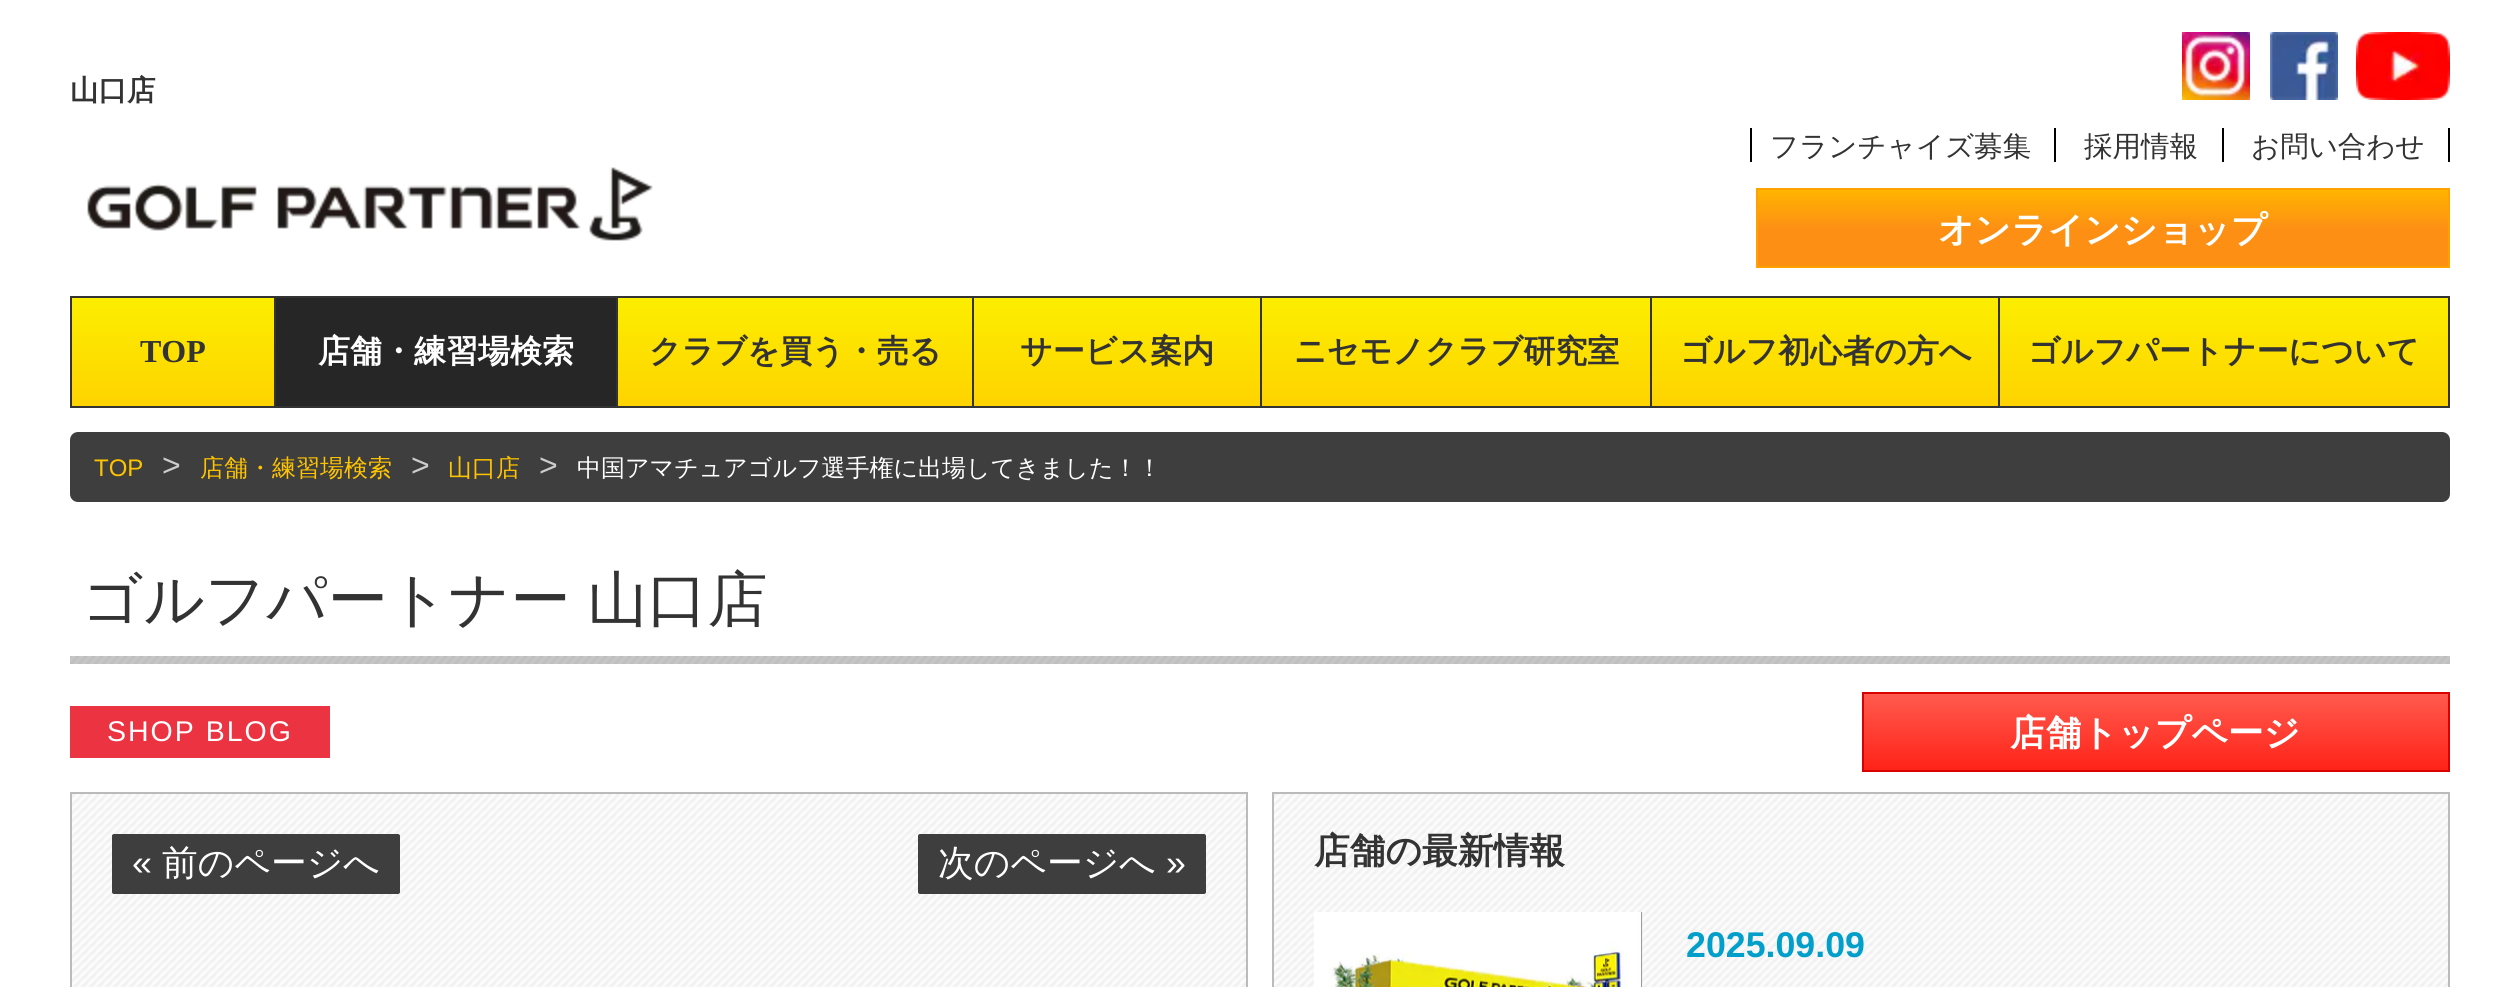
import math
import cairo


def write_spaced(ctx, x, y, s, letter, word):
	ctx.move_to(x, y)
	for ch in s:
		ctx.show_text(ch)
		ctx.rel_move_to(letter + word * (ch == ' '), 0)

def round_path(ctx, x, y, w, h, r):
	ctx.new_sub_path()
	for i, (u, v) in enumerate([(x + w - r, y + h - r), (x + r, y + h - r), (x + r, y + r), (x + w - r, y + r)]):
		ctx.arc(u, v, r, i * math.pi / 2, (i + 1) * math.pi / 2)
	ctx.close_path()

def paste(ctx, path, x, y, w, h):
	ctx.save()
	ctx.set_source_surface(cairo.ImageSurface.create_from_png(path), x, y)
	ctx.rectangle(x, y, w, h)
	ctx.fill()
	ctx.restore()

def draw(ctx):
	ctx.set_source_rgb(1, 1, 1)
	ctx.paint()
	ctx.select_font_face('WenQuanYi Zen Hei', cairo.FONT_SLANT_NORMAL, cairo.FONT_WEIGHT_BOLD)
	ctx.set_font_size(28.5)
	ctx.set_source_rgb(0.2, 0.2, 0.2)
	ctx.move_to(70, 100)
	ctx.show_text('山口店')
	paste(ctx, 'media/1.png', 87, 167, 566, 74)
	paste(ctx, 'media/2.png', 2182, 32, 68, 68)
	paste(ctx, 'media/3.png', 2270, 32, 68, 68)
	paste(ctx, 'media/4.png', 2356, 32, 94, 68)
	ctx.select_font_face('WenQuanYi Zen Hei Medium')
	ctx.move_to(1770, 156)
	ctx.show_text('フランチャイズ募集')
	ctx.set_source_rgb(0, 0, 0)
	ctx.rectangle(2054, 128, 2, 34)
	ctx.fill()
	ctx.rectangle(1750, 128, 2, 34)
	ctx.fill()
	ctx.set_source_rgb(0.2, 0.2, 0.2)
	ctx.move_to(2084, 156)
	ctx.show_text('採用情報')
	ctx.set_source_rgb(0, 0, 0)
	ctx.rectangle(2222, 128, 2, 34)
	ctx.fill()
	ctx.set_source_rgb(0.2, 0.2, 0.2)
	ctx.move_to(2251, 156)
	ctx.show_text('お問い合わせ')
	ctx.set_source_rgb(0, 0, 0)
	ctx.rectangle(2448, 128, 2, 34)
	ctx.fill()
	gradient = cairo.LinearGradient(2103, 190, 2103, 266)
	gradient.add_color_stop_rgba(0, 1, 0.706, 0, 1)
	gradient.add_color_stop_rgba(0.5, 0.992, 0.565, 0.078, 1)
	ctx.set_source(gradient)
	ctx.rectangle(1758, 190, 690, 76)
	ctx.fill()
	ctx.rectangle(1757, 189, 692, 78)
	ctx.set_source_rgb(1, 0.635, 0)
	ctx.stroke()
	ctx.select_font_face('WenQuanYi Zen Hei', cairo.FONT_SLANT_NORMAL, cairo.FONT_WEIGHT_BOLD)
	ctx.set_font_size(35.75)
	ctx.set_source_rgb(1, 1, 1)
	ctx.move_to(1938, 242)
	ctx.show_text('オンラインショップ')
	ctx.rectangle(71, 297, 2378, 110)
	ctx.set_source_rgb(0.2, 0.2, 0.2)
	ctx.stroke()
	gradient = cairo.LinearGradient(173, 298, 173, 406)
	gradient.add_color_stop_rgba(0, 0.988, 0.933, 0, 1)
	gradient.add_color_stop_rgba(1, 0.996, 0.827, 0, 1)
	ctx.set_source(gradient)
	ctx.rectangle(72, 298, 202, 108)
	ctx.fill()
	ctx.set_source_rgb(0.2, 0.2, 0.2)
	ctx.rectangle(274, 298, 2, 108)
	ctx.fill()
	ctx.select_font_face('Liberation Serif', cairo.FONT_SLANT_NORMAL, cairo.FONT_WEIGHT_BOLD)
	ctx.set_font_size(32)
	ctx.move_to(140, 362)
	ctx.show_text('TOP')
	ctx.rectangle(616, 298, 2, 108)
	ctx.fill()
	ctx.set_source_rgb(0.149, 0.149, 0.149)
	ctx.rectangle(276, 298, 340, 108)
	ctx.fill()
	ctx.select_font_face('WenQuanYi Zen Hei', cairo.FONT_SLANT_NORMAL, cairo.FONT_WEIGHT_BOLD)
	ctx.set_source_rgb(1, 1, 1)
	ctx.move_to(318, 362)
	ctx.show_text('店舗・練習場検索')
	gradient = cairo.LinearGradient(795, 298, 795, 406)
	gradient.add_color_stop_rgba(0, 0.988, 0.933, 0, 1)
	gradient.add_color_stop_rgba(1, 0.996, 0.827, 0, 1)
	ctx.set_source(gradient)
	ctx.rectangle(618, 298, 354, 108)
	ctx.fill()
	ctx.set_source_rgb(0.2, 0.2, 0.2)
	ctx.rectangle(972, 298, 2, 108)
	ctx.fill()
	ctx.move_to(649, 362)
	ctx.show_text('クラブを買う・売る')
	gradient = cairo.LinearGradient(1117, 298, 1117, 406)
	gradient.add_color_stop_rgba(0, 0.988, 0.933, 0, 1)
	gradient.add_color_stop_rgba(1, 0.996, 0.827, 0, 1)
	ctx.set_source(gradient)
	ctx.rectangle(974, 298, 286, 108)
	ctx.fill()
	ctx.set_source_rgb(0.2, 0.2, 0.2)
	ctx.rectangle(1260, 298, 2, 108)
	ctx.fill()
	ctx.move_to(1020, 362)
	ctx.show_text('サービス案内')
	gradient = cairo.LinearGradient(1456, 298, 1456, 406)
	gradient.add_color_stop_rgba(0, 0.988, 0.933, 0, 1)
	gradient.add_color_stop_rgba(1, 0.996, 0.827, 0, 1)
	ctx.set_source(gradient)
	ctx.rectangle(1262, 298, 388, 108)
	ctx.fill()
	ctx.set_source_rgb(0.2, 0.2, 0.2)
	ctx.rectangle(1650, 298, 2, 108)
	ctx.fill()
	ctx.move_to(1294, 362)
	ctx.show_text('ニセモノクラブ研究室')
	gradient = cairo.LinearGradient(1825, 298, 1825, 406)
	gradient.add_color_stop_rgba(0, 0.988, 0.933, 0, 1)
	gradient.add_color_stop_rgba(1, 0.996, 0.827, 0, 1)
	ctx.set_source(gradient)
	ctx.rectangle(1652, 298, 346, 108)
	ctx.fill()
	ctx.set_source_rgb(0.2, 0.2, 0.2)
	ctx.rectangle(1998, 298, 2, 108)
	ctx.fill()
	ctx.move_to(1680, 362)
	ctx.show_text('ゴルフ初心者の方へ')
	gradient = cairo.LinearGradient(2224, 298, 2224, 406)
	gradient.add_color_stop_rgba(0, 0.988, 0.933, 0, 1)
	gradient.add_color_stop_rgba(1, 0.996, 0.827, 0, 1)
	ctx.set_source(gradient)
	ctx.rectangle(2000, 298, 448, 108)
	ctx.fill()
	ctx.set_source_rgb(0.2, 0.2, 0.2)
	ctx.move_to(2028, 362)
	ctx.show_text('ゴルフパートナーについて')
	ctx.set_source_rgb(0.243, 0.243, 0.243)
	round_path(ctx, 70, 432, 2380, 70, 8)
	ctx.fill()
	ctx.select_font_face('Liberation Sans')
	ctx.set_font_size(24)
	ctx.set_source_rgb(1, 0.769, 0)
	ctx.move_to(94, 476)
	ctx.show_text('TOP')
	ctx.set_font_size(32)
	ctx.set_source_rgb(0.8, 0.8, 0.8)
	ctx.move_to(162, 476)
	ctx.show_text('>')
	ctx.select_font_face('WenQuanYi Zen Hei Medium')
	ctx.set_font_size(24)
	ctx.set_source_rgb(1, 0.769, 0)
	ctx.move_to(200, 476)
	ctx.show_text('店舗・練習場検索')
	ctx.select_font_face('Liberation Sans')
	ctx.set_font_size(32)
	ctx.set_source_rgb(0.8, 0.8, 0.8)
	ctx.move_to(411, 476)
	ctx.show_text('>')
	ctx.select_font_face('WenQuanYi Zen Hei Medium')
	ctx.set_font_size(24)
	ctx.set_source_rgb(1, 0.769, 0)
	ctx.move_to(448, 476)
	ctx.show_text('山口店')
	ctx.select_font_face('Liberation Sans')
	ctx.set_font_size(32)
	ctx.set_source_rgb(0.8, 0.8, 0.8)
	ctx.move_to(539, 476)
	ctx.show_text('>')
	ctx.select_font_face('WenQuanYi Zen Hei Medium')
	ctx.set_font_size(24)
	ctx.set_source_rgb(1, 1, 1)
	ctx.move_to(577, 476)
	ctx.show_text('中国アマチュアゴルフ選手権に出場してきました！！')
	paste(ctx, 'media/5.png', 70, 656, 2380, 8)
	ctx.set_font_size(60)
	ctx.set_source_rgb(0.2, 0.2, 0.2)
	write_spaced(ctx, 82, 620, 'ゴルフパートナー 山口店', 0, -1)
	ctx.set_source_rgb(0.922, 0.2, 0.255)
	ctx.rectangle(70, 706, 260, 52)
	ctx.fill()
	ctx.select_font_face('Liberation Sans')
	ctx.set_font_size(28.5)
	ctx.set_source_rgb(1, 1, 1)
	write_spaced(ctx, 107, 741, 'SHOP BLOG', 2, 0)
	ctx.rectangle(71, 793, 1176, 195)
	ctx.set_source_rgb(0.733, 0.733, 0.733)
	ctx.stroke()
	paste(ctx, 'media/6.png', 72, 794, 1174, 193)
	ctx.set_source_rgb(0.243, 0.243, 0.243)
	round_path(ctx, 112, 834, 288, 60, 2)
	ctx.fill()
	ctx.set_font_size(35.75)
	ctx.set_source_rgb(1, 1, 1)
	ctx.move_to(132, 875)
	ctx.show_text('«')
	ctx.select_font_face('WenQuanYi Zen Hei Medium')
	ctx.move_to(162, 875)
	ctx.show_text('前のページへ')
	ctx.set_source_rgb(0.243, 0.243, 0.243)
	round_path(ctx, 918, 834, 288, 60, 2)
	ctx.fill()
	ctx.set_source_rgb(1, 1, 1)
	ctx.move_to(938, 875)
	ctx.show_text('次のページへ')
	ctx.select_font_face('Liberation Sans')
	ctx.move_to(1166, 875)
	ctx.show_text('»')
	gradient = cairo.LinearGradient(2156, 694, 2156, 770)
	gradient.add_color_stop_rgba(0, 0.118, 0.341, 0.6, 1)
	gradient.add_color_stop_rgba(0, 1, 0.353, 0.306, 1)
	gradient.add_color_stop_rgba(1, 1, 0.137, 0.094, 1)
	ctx.set_source(gradient)
	ctx.rectangle(1864, 694, 584, 76)
	ctx.fill()
	ctx.rectangle(1863, 693, 586, 78)
	ctx.set_source_rgb(0.851, 0, 0)
	ctx.stroke()
	ctx.select_font_face('WenQuanYi Zen Hei', cairo.FONT_SLANT_NORMAL, cairo.FONT_WEIGHT_BOLD)
	ctx.set_source_rgb(1, 1, 1)
	ctx.move_to(2010, 745)
	ctx.show_text('店舗トップページ')
	ctx.rectangle(1273, 793, 1176, 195)
	ctx.set_source_rgb(0.733, 0.733, 0.733)
	ctx.stroke()
	paste(ctx, 'media/6.png', 1274, 794, 1174, 193)
	ctx.set_source_rgb(0.2, 0.2, 0.2)
	ctx.move_to(1314, 863)
	ctx.show_text('店舗の最新情報')
	paste(ctx, 'media/7.png', 1314, 912, 329, 75)
	ctx.select_font_face('Liberation Sans', cairo.FONT_SLANT_NORMAL, cairo.FONT_WEIGHT_BOLD)
	ctx.set_source_rgb(0.012, 0.624, 0.796)
	ctx.move_to(1686, 957)
	ctx.show_text('2025.09.09')


surface = cairo.ImageSurface(cairo.FORMAT_RGB24, 2519, 987)
ctx = cairo.Context(surface)
options = cairo.FontOptions()
options.set_hint_metrics(cairo.HINT_METRICS_OFF)
options.set_hint_style(cairo.HINT_STYLE_NONE)
ctx.set_font_options(options)
ctx.set_miter_limit(4)
draw(ctx)
surface.write_to_png('image.png')
